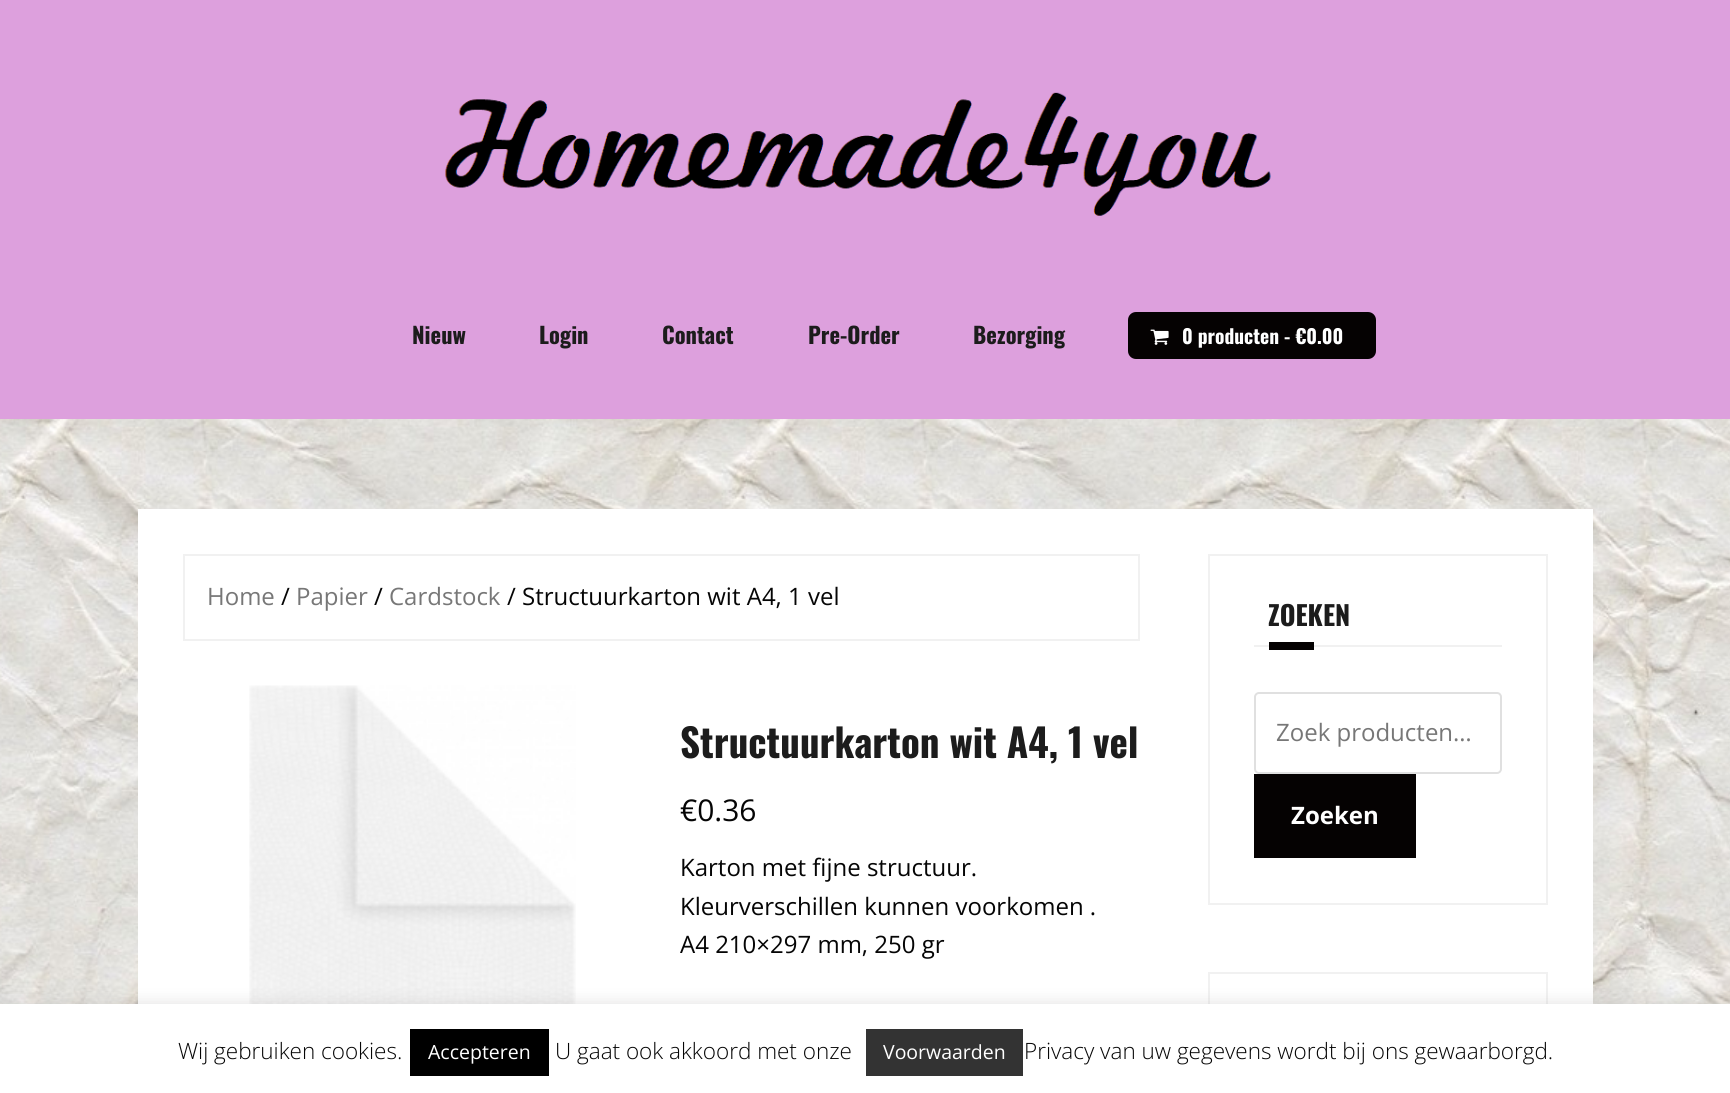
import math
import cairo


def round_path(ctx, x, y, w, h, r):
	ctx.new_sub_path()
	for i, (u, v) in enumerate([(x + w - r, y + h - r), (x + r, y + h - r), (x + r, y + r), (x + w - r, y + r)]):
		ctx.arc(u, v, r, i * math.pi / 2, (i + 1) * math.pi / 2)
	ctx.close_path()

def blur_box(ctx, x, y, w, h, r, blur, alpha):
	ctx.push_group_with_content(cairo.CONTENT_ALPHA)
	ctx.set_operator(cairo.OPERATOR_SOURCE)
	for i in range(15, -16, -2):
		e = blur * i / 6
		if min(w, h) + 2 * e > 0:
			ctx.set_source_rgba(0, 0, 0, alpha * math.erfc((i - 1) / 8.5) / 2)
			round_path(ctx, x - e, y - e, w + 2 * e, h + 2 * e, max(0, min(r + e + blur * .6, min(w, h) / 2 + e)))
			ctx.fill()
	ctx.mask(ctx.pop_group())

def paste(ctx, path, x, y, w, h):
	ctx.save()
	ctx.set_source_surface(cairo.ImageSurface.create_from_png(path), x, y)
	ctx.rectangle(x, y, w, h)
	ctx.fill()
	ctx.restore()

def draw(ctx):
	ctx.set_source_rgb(1, 1, 1)
	ctx.paint()
	paste(ctx, 'media/1.png', 0, 419, 1730, 585)
	ctx.set_source_rgb(0.867, 0.627, 0.867)
	ctx.rectangle(0, 0, 1730, 419)
	ctx.fill()
	paste(ctx, 'media/2.png', 445, 92, 826, 124)
	ctx.select_font_face('Oswald', cairo.FONT_SLANT_NORMAL, cairo.FONT_WEIGHT_BOLD)
	ctx.set_font_size(22.5)
	ctx.set_source_rgb(0.11, 0.11, 0.11)
	for x, y, s in [
		(412, 344, 'Nieuw'),
		(539, 344, 'Login'),
		(662, 344, 'Contact'),
		(808, 344, 'Pre-Order'),
		(973, 344, 'Bezorging'),
	]:
		ctx.move_to(x, y)
		ctx.show_text(s)
	ctx.set_source_rgb(0.02, 0.008, 0.008)
	round_path(ctx, 1128, 312, 248, 47, 8)
	ctx.fill()
	paste(ctx, 'media/3.png', 1150, 329, 19, 16)
	ctx.set_font_size(19.5)
	ctx.set_source_rgb(1, 1, 1)
	ctx.move_to(1182, 344)
	ctx.show_text('0 producten - €0.00')
	ctx.rectangle(138, 509, 1455, 495)
	ctx.fill()
	ctx.rectangle(184, 555, 955, 85)
	ctx.set_source_rgb(0.945, 0.945, 0.945)
	ctx.stroke()
	ctx.select_font_face('Open Sans')
	ctx.set_font_size(24)
	ctx.set_source_rgb(0.467, 0.467, 0.467)
	ctx.move_to(207, 605)
	ctx.show_text('Home')
	ctx.set_source_rgb(0.02, 0.02, 0.02)
	ctx.move_to(281, 605)
	ctx.show_text('/')
	ctx.set_source_rgb(0.467, 0.467, 0.467)
	ctx.move_to(296, 605)
	ctx.show_text('Papier')
	ctx.set_source_rgb(0.02, 0.02, 0.02)
	ctx.move_to(374, 605)
	ctx.show_text('/')
	ctx.set_source_rgb(0.467, 0.467, 0.467)
	ctx.move_to(389, 605)
	ctx.show_text('Cardstock')
	ctx.set_source_rgb(0.02, 0.02, 0.02)
	ctx.move_to(507, 605)
	ctx.show_text('/ Structuurkarton wit A4, 1 vel')
	paste(ctx, 'media/4.png', 249, 685, 327, 319)
	ctx.select_font_face('Oswald', cairo.FONT_SLANT_NORMAL, cairo.FONT_WEIGHT_BOLD)
	ctx.set_font_size(39)
	ctx.set_source_rgb(0.11, 0.11, 0.11)
	ctx.move_to(680, 758)
	ctx.show_text('Structuurkarton wit A4, 1 vel')
	ctx.select_font_face('Open Sans')
	ctx.set_font_size(30)
	ctx.set_source_rgb(0.02, 0.02, 0.02)
	ctx.move_to(680, 821)
	ctx.show_text('€0.36')
	ctx.set_font_size(24)
	for x, y, s in [
		(680, 876, 'Karton met fijne structuur.'),
		(680, 915, 'Kleurverschillen kunnen voorkomen .'),
		(680, 953, 'A4 210×297 mm, 250 gr'),
	]:
		ctx.move_to(x, y)
		ctx.show_text(s)
	ctx.rectangle(1209, 555, 338, 349)
	ctx.set_source_rgb(0.945, 0.945, 0.945)
	ctx.stroke()
	ctx.rectangle(1254, 645, 248, 2)
	ctx.fill()
	ctx.select_font_face('Oswald', cairo.FONT_SLANT_NORMAL, cairo.FONT_WEIGHT_BOLD)
	ctx.set_font_size(27)
	ctx.set_source_rgb(0.11, 0.11, 0.11)
	ctx.move_to(1268, 626)
	ctx.show_text('ZOEKEN')
	ctx.set_source_rgb(0.02, 0.008, 0.008)
	ctx.rectangle(1269, 642, 45, 8)
	ctx.fill()
	round_path(ctx, 1255, 693, 246, 80, 4)
	ctx.set_source_rgb(0.878, 0.878, 0.878)
	ctx.stroke()
	ctx.select_font_face('Open Sans')
	ctx.set_font_size(24)
	ctx.set_source_rgb(0.467, 0.467, 0.467)
	ctx.move_to(1276, 741)
	ctx.show_text('Zoek producten…')
	ctx.set_source_rgb(0.02, 0.008, 0.008)
	ctx.rectangle(1254, 774, 162, 84)
	ctx.fill()
	ctx.select_font_face('Open Sans', cairo.FONT_SLANT_NORMAL, cairo.FONT_WEIGHT_BOLD)
	ctx.set_source_rgb(1, 1, 1)
	ctx.move_to(1291, 824)
	ctx.show_text('Zoeken')
	ctx.rectangle(1209, 973, 338, 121)
	ctx.set_source_rgb(0.945, 0.945, 0.945)
	ctx.stroke()
	ctx.set_source_rgb(0.675, 0.671, 0.671)
	blur_box(ctx, 0, 1002, 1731, 90, 0, 7.5, 0.3)
	ctx.set_source_rgb(1, 1, 1)
	ctx.rectangle(0, 1004, 1730, 89)
	ctx.fill()
	ctx.select_font_face('Open Sans Light')
	ctx.set_font_size(22.5)
	ctx.set_source_rgb(0.02, 0.02, 0.02)
	ctx.move_to(178, 1059)
	ctx.show_text('Wij gebruiken cookies.')
	ctx.set_source_rgb(0, 0, 0)
	ctx.rectangle(410, 1029, 139, 47)
	ctx.fill()
	ctx.select_font_face('Open Sans')
	ctx.set_font_size(19.5)
	ctx.set_source_rgb(1, 1, 1)
	ctx.move_to(428, 1059)
	ctx.show_text('Accepteren')
	ctx.select_font_face('Open Sans Light')
	ctx.set_font_size(22.5)
	ctx.set_source_rgb(0.02, 0.02, 0.02)
	ctx.move_to(555, 1059)
	ctx.show_text('U gaat ook akkoord met onze')
	ctx.set_source_rgb(0.2, 0.2, 0.2)
	ctx.rectangle(866, 1029, 157, 47)
	ctx.fill()
	ctx.select_font_face('Open Sans')
	ctx.set_font_size(19.5)
	ctx.set_source_rgb(1, 1, 1)
	ctx.move_to(883, 1059)
	ctx.show_text('Voorwaarden')
	ctx.select_font_face('Open Sans Light')
	ctx.set_font_size(22.5)
	ctx.set_source_rgb(0.02, 0.02, 0.02)
	ctx.move_to(1024, 1059)
	ctx.show_text('Privacy van uw gegevens wordt bij ons gewaarborgd.')


surface = cairo.ImageSurface(cairo.FORMAT_RGB24, 1730, 1093)
ctx = cairo.Context(surface)
options = cairo.FontOptions()
options.set_hint_metrics(cairo.HINT_METRICS_OFF)
options.set_hint_style(cairo.HINT_STYLE_NONE)
ctx.set_font_options(options)
ctx.set_miter_limit(4)
draw(ctx)
surface.write_to_png('image.png')
